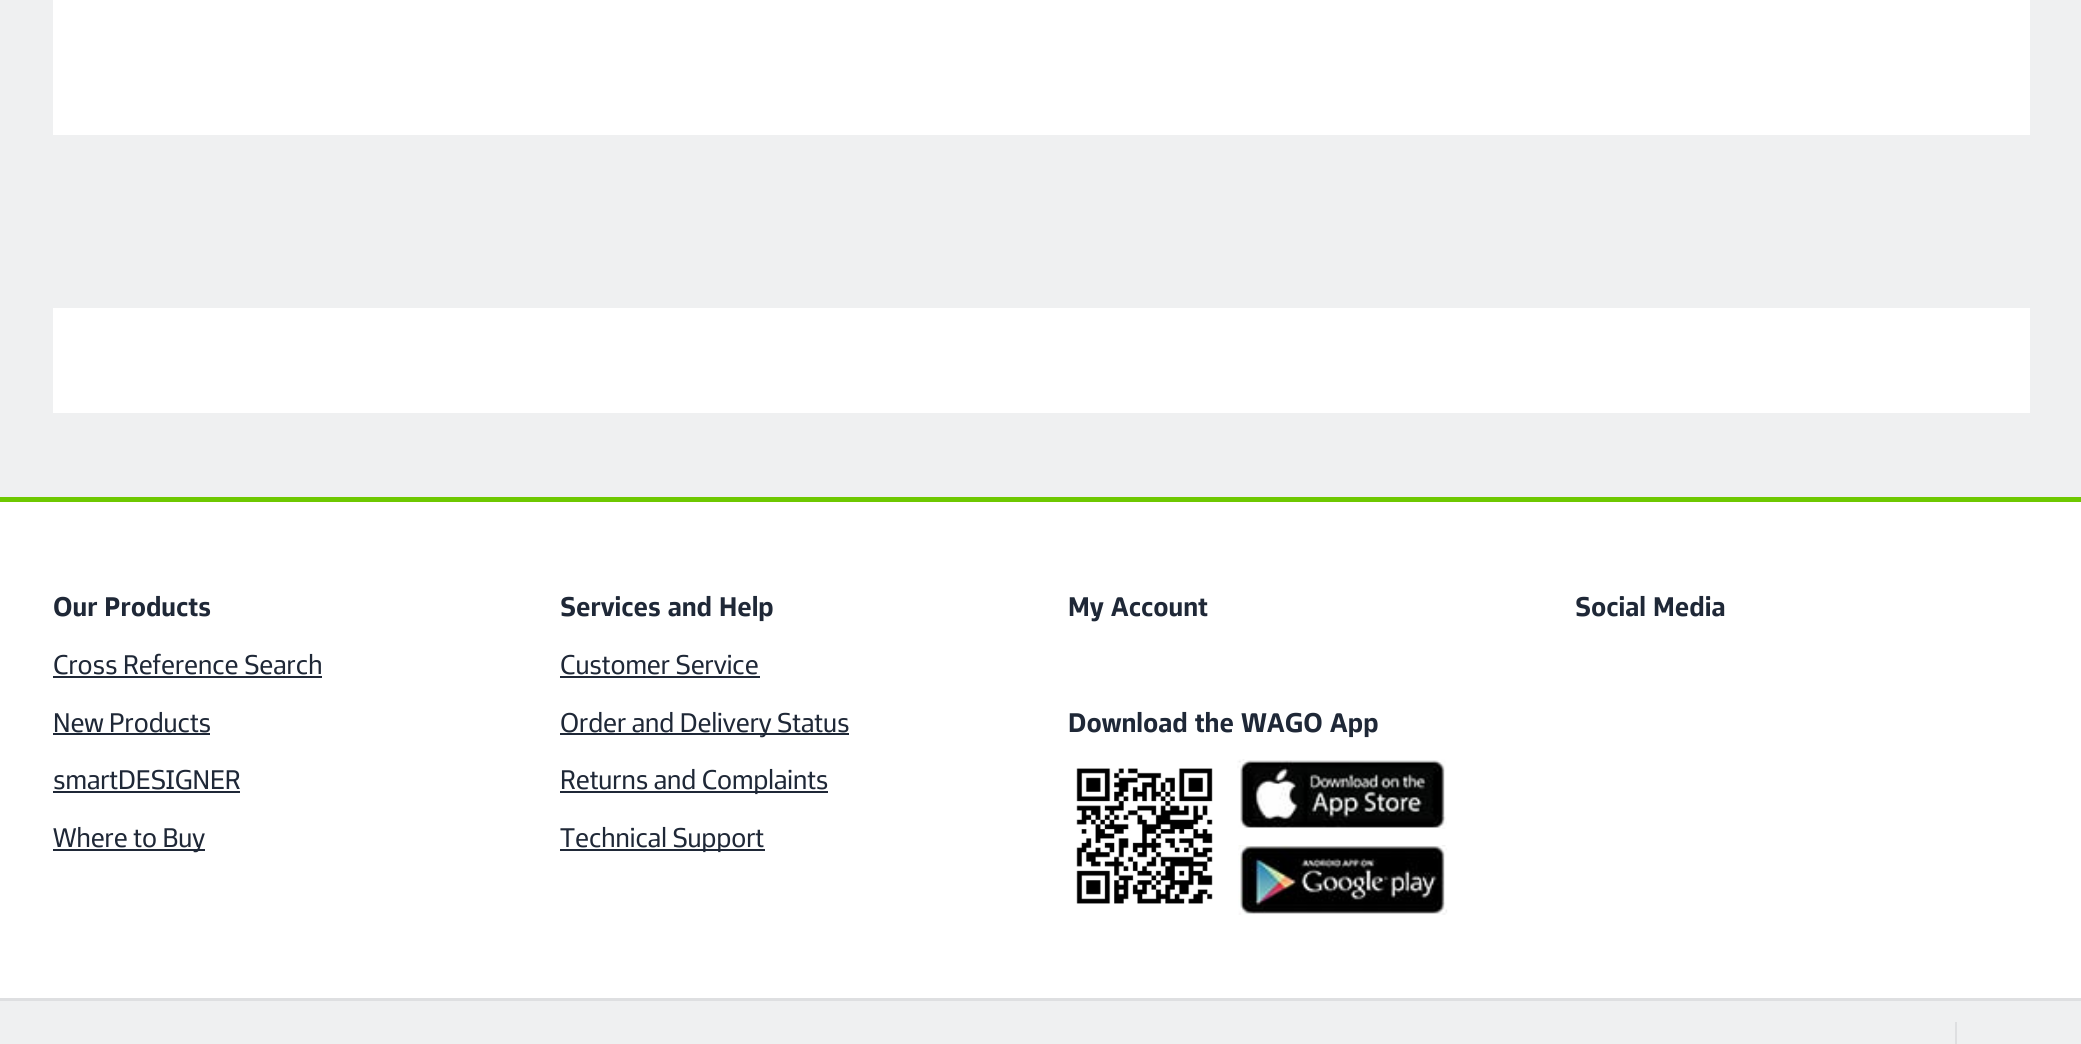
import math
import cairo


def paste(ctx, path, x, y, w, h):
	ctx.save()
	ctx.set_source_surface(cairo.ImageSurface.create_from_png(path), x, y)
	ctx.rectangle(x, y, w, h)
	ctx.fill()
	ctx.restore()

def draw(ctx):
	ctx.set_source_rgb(0.937, 0.941, 0.945)
	ctx.paint()
	ctx.set_source_rgb(1, 1, 1)
	ctx.rectangle(53, 0, 1977, 135)
	ctx.rectangle(53, 308, 1977, 105)
	ctx.rectangle(0, 502, 2081, 496)
	ctx.fill()
	ctx.set_source_rgb(0.431, 0.784, 0)
	ctx.rectangle(0, 497, 2081, 5)
	ctx.fill()
	ctx.select_font_face('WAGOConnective', cairo.FONT_SLANT_NORMAL, cairo.FONT_WEIGHT_BOLD)
	ctx.set_font_size(26.25)
	ctx.set_source_rgb(0.122, 0.157, 0.216)
	ctx.move_to(53, 616)
	ctx.show_text('Our Products')
	ctx.select_font_face('WAGOConnective')
	ctx.move_to(53, 674)
	ctx.show_text('Cross Reference Search')
	ctx.rectangle(53, 676, 269, 2)
	ctx.fill()
	ctx.move_to(53, 732)
	ctx.show_text('New Products')
	ctx.rectangle(53, 733, 157, 2)
	ctx.fill()
	ctx.move_to(53, 789)
	ctx.show_text('smartDESIGNER')
	ctx.rectangle(53, 791, 187, 2)
	ctx.fill()
	ctx.rectangle(53, 849, 152, 2)
	ctx.fill()
	ctx.move_to(53, 847)
	ctx.show_text('Where to Buy')
	ctx.select_font_face('WAGOConnective', cairo.FONT_SLANT_NORMAL, cairo.FONT_WEIGHT_BOLD)
	ctx.move_to(560, 616)
	ctx.show_text('Services and Help')
	ctx.select_font_face('WAGOConnective')
	ctx.move_to(560, 674)
	ctx.show_text('Customer Service')
	ctx.rectangle(560, 676, 200, 2)
	ctx.fill()
	ctx.rectangle(560, 733, 289, 2)
	ctx.fill()
	ctx.move_to(560, 732)
	ctx.show_text('Order and Delivery Status')
	ctx.rectangle(560, 791, 268, 2)
	ctx.fill()
	ctx.move_to(560, 789)
	ctx.show_text('Returns and Complaints')
	ctx.rectangle(560, 849, 205, 2)
	ctx.fill()
	ctx.move_to(560, 847)
	ctx.show_text('Technical Support')
	ctx.select_font_face('WAGOConnective', cairo.FONT_SLANT_NORMAL, cairo.FONT_WEIGHT_BOLD)
	ctx.move_to(1068, 616)
	ctx.show_text('My Account')
	ctx.move_to(1068, 732)
	ctx.show_text('Download the WAGO App')
	paste(ctx, 'media/1.png', 1076, 768, 137, 136)
	paste(ctx, 'media/2.png', 1237, 759, 210, 70)
	paste(ctx, 'media/3.png', 1238, 845, 210, 70)
	ctx.move_to(1575, 616)
	ctx.show_text('Social Media')
	ctx.set_source_rgb(0.871, 0.875, 0.882)
	ctx.rectangle(0, 998, 2081, 3)
	ctx.fill()
	ctx.rectangle(1955, 1022, 2, 22)
	ctx.fill()


surface = cairo.ImageSurface(cairo.FORMAT_RGB24, 2081, 1044)
ctx = cairo.Context(surface)
options = cairo.FontOptions()
options.set_hint_metrics(cairo.HINT_METRICS_OFF)
options.set_hint_style(cairo.HINT_STYLE_NONE)
ctx.set_font_options(options)
ctx.set_miter_limit(4)
draw(ctx)
surface.write_to_png('image.png')
